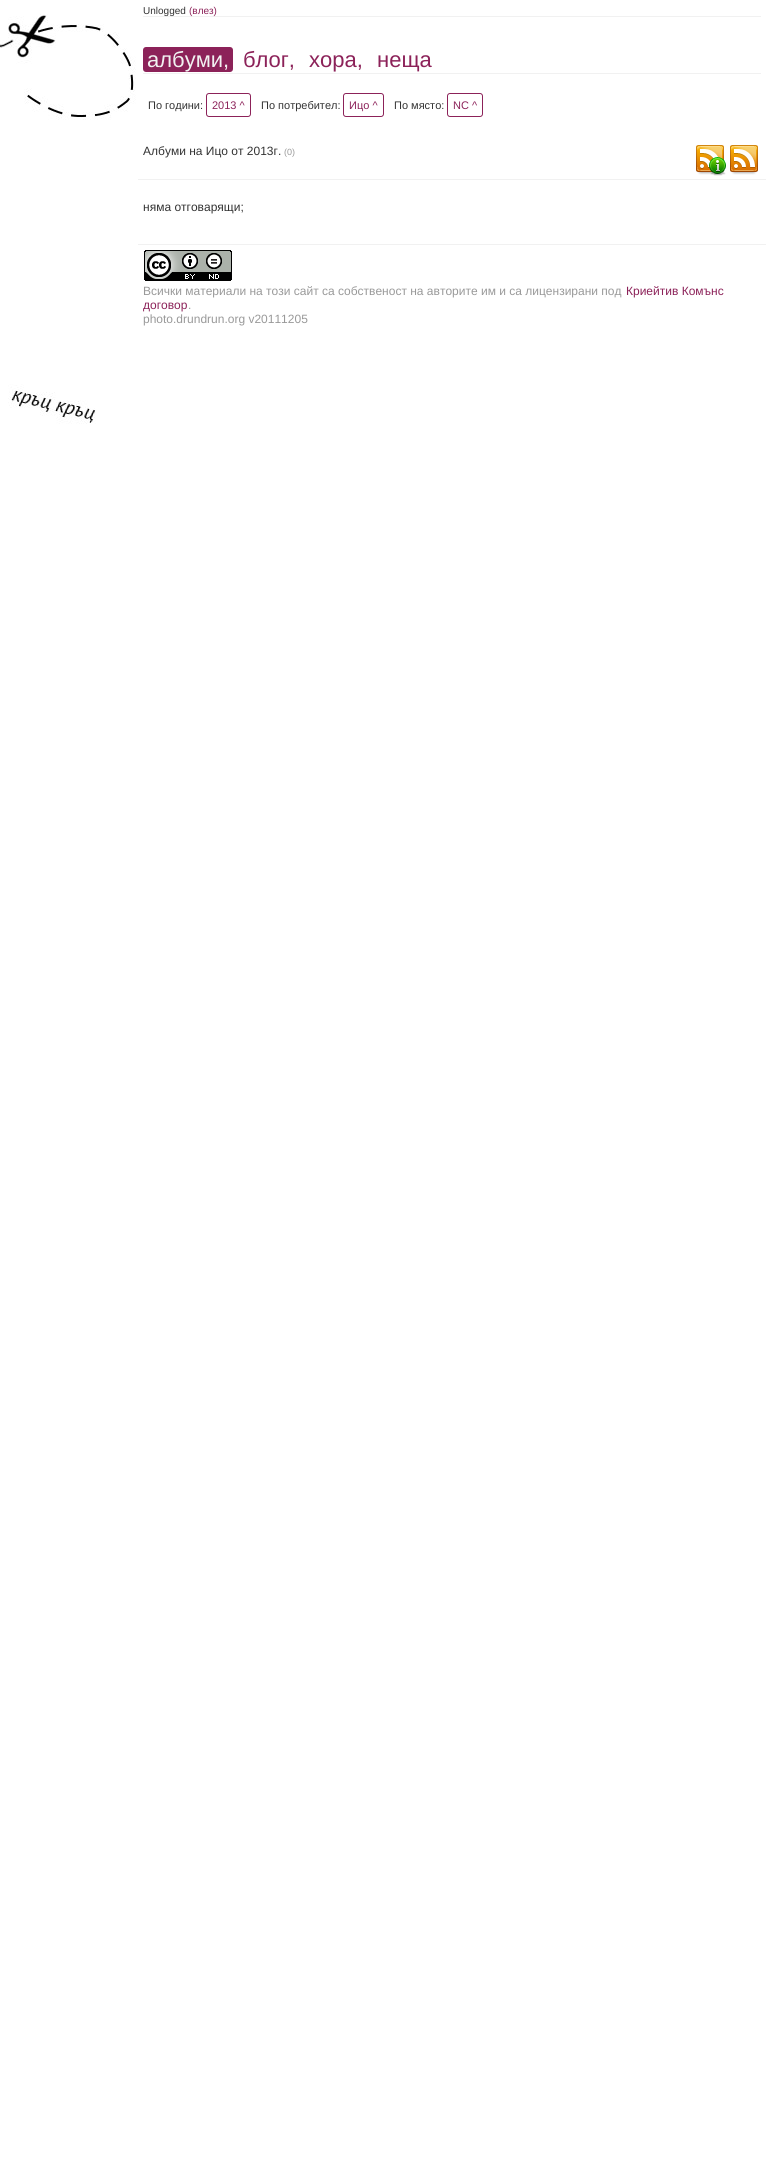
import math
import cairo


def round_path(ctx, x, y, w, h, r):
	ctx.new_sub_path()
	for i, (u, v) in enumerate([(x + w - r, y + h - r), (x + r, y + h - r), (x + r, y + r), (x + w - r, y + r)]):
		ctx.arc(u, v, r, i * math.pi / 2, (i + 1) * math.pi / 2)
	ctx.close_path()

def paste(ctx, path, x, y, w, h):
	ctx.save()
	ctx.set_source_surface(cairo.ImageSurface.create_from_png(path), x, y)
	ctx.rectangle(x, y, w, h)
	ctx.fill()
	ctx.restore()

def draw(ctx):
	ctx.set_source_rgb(1, 1, 1)
	ctx.paint()
	paste(ctx, 'media/1.png', 0, 14, 136, 410)
	ctx.set_source_rgb(0.945, 0.945, 0.945)
	ctx.rectangle(143, 16, 618, 1)
	ctx.fill()
	ctx.select_font_face('Liberation Sans')
	ctx.set_font_size(10)
	ctx.set_source_rgb(0.2, 0.2, 0.2)
	ctx.move_to(143, 14)
	ctx.show_text('Unlogged')
	ctx.set_source_rgb(0.549, 0.133, 0.349)
	ctx.move_to(189, 14)
	ctx.show_text('(влез)')
	ctx.set_source_rgb(0.945, 0.945, 0.945)
	ctx.rectangle(143, 73, 618, 1)
	ctx.fill()
	ctx.set_source_rgb(0.549, 0.133, 0.349)
	round_path(ctx, 143, 47, 90, 25, 3)
	ctx.fill()
	ctx.set_font_size(22)
	ctx.set_source_rgb(0.945, 0.945, 0.945)
	ctx.move_to(147, 67)
	ctx.show_text('албуми,')
	ctx.set_source_rgb(0.549, 0.133, 0.349)
	for x, y, s in [
		(243, 67, 'блог,'),
		(309, 67, 'хора,'),
		(377, 67, 'неща'),
	]:
		ctx.move_to(x, y)
		ctx.show_text(s)
	ctx.set_font_size(11)
	ctx.set_source_rgb(0.2, 0.2, 0.2)
	ctx.move_to(148, 109)
	ctx.show_text('По години:')
	round_path(ctx, 206.5, 93.5, 44, 23, 2.5)
	ctx.set_source_rgb(0.549, 0.133, 0.349)
	ctx.set_line_width(1)
	ctx.stroke()
	ctx.move_to(212, 109)
	ctx.show_text('2013 ^')
	ctx.set_source_rgb(0.2, 0.2, 0.2)
	ctx.move_to(261, 109)
	ctx.show_text('По потребител:')
	round_path(ctx, 343.5, 93.5, 40, 23, 2.5)
	ctx.set_source_rgb(0.549, 0.133, 0.349)
	ctx.stroke()
	ctx.move_to(349, 109)
	ctx.show_text('Ицо ^')
	ctx.set_source_rgb(0.2, 0.2, 0.2)
	ctx.move_to(394, 109)
	ctx.show_text('По място:')
	round_path(ctx, 447.5, 93.5, 35, 23, 2.5)
	ctx.set_source_rgb(0.549, 0.133, 0.349)
	ctx.stroke()
	ctx.move_to(453, 109)
	ctx.show_text('NC ^')
	ctx.set_source_rgb(0.945, 0.945, 0.945)
	ctx.rectangle(138, 179, 628, 1)
	ctx.fill()
	ctx.set_font_size(12)
	ctx.set_source_rgb(0.2, 0.2, 0.2)
	ctx.move_to(143, 155)
	ctx.show_text('Албуми на Ицо от 2013г.')
	ctx.set_font_size(9)
	ctx.set_source_rgb(0.6, 0.6, 0.6)
	ctx.move_to(284, 155)
	ctx.show_text('(0)')
	paste(ctx, 'media/2.png', 696, 145, 30, 31)
	paste(ctx, 'media/3.png', 730, 145, 28, 30)
	ctx.set_font_size(12)
	ctx.set_source_rgb(0.2, 0.2, 0.2)
	ctx.move_to(143, 211)
	ctx.show_text('няма отговарящи;')
	ctx.set_source_rgb(0.945, 0.945, 0.945)
	ctx.rectangle(138, 244, 628, 1)
	ctx.fill()
	paste(ctx, 'media/4.png', 144, 250, 88, 31)
	ctx.set_source_rgb(0.6, 0.6, 0.6)
	ctx.move_to(143, 295)
	ctx.show_text('Всички материали на този сайт са собственост на авторите им и са лицензирани под')
	ctx.set_source_rgb(0.549, 0.133, 0.349)
	ctx.move_to(626, 295)
	ctx.show_text('Криейтив Комънс')
	ctx.move_to(143, 309)
	ctx.show_text('договор')
	ctx.set_source_rgb(0.6, 0.6, 0.6)
	ctx.move_to(188, 309)
	ctx.show_text('.')
	ctx.move_to(143, 323)
	ctx.show_text('photo.drundrun.org v20111205')


surface = cairo.ImageSurface(cairo.FORMAT_RGB24, 766, 2184)
ctx = cairo.Context(surface)
options = cairo.FontOptions()
options.set_hint_metrics(cairo.HINT_METRICS_OFF)
options.set_hint_style(cairo.HINT_STYLE_NONE)
ctx.set_font_options(options)
ctx.set_miter_limit(4)
draw(ctx)
surface.write_to_png('image.png')
